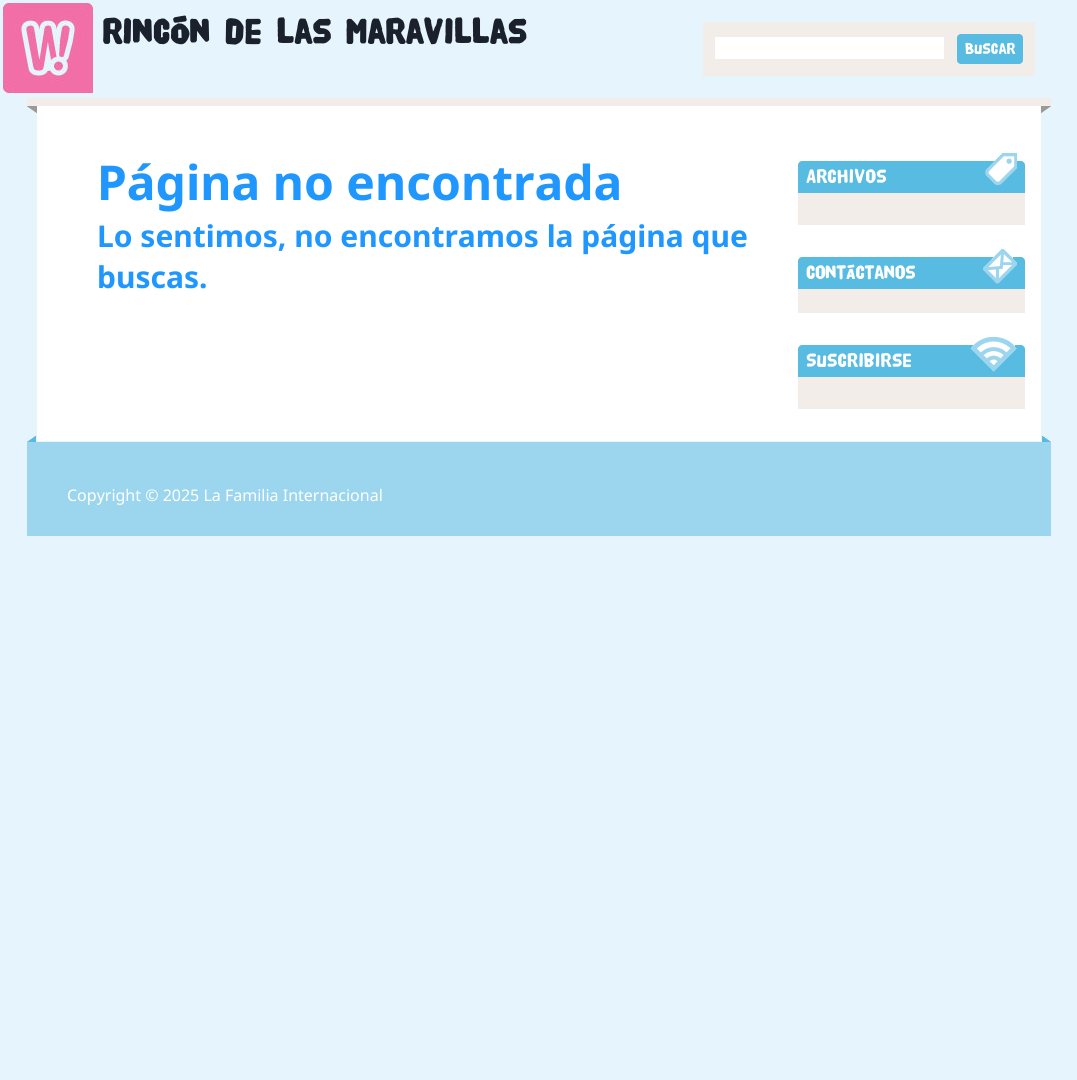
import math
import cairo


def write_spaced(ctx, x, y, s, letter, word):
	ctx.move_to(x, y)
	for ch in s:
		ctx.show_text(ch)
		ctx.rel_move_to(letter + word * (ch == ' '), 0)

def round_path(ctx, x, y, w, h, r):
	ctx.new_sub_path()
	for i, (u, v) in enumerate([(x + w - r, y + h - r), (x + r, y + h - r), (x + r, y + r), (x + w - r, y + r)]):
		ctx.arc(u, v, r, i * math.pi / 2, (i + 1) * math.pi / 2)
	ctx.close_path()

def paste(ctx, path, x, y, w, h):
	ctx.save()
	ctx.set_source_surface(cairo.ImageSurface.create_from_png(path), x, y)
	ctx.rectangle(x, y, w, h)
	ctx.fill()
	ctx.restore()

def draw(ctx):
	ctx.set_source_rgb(0.902, 0.957, 0.992)
	ctx.paint()
	paste(ctx, 'media/1.png', 2, 2, 92, 92)
	ctx.select_font_face('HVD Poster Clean', cairo.FONT_SLANT_NORMAL, cairo.FONT_WEIGHT_BOLD)
	ctx.set_font_size(36)
	ctx.set_source_rgb(0.102, 0.125, 0.173)
	ctx.move_to(102, 44)
	ctx.show_text('Rincón de las maravillas')
	ctx.set_source_rgb(0.949, 0.929, 0.914)
	ctx.rectangle(703, 22, 332, 54)
	ctx.fill()
	ctx.set_source_rgb(1, 1, 1)
	ctx.rectangle(715, 37, 229, 22)
	ctx.fill()
	ctx.set_source_rgb(0.341, 0.733, 0.886)
	round_path(ctx, 957, 34, 66, 30, 4)
	ctx.fill()
	ctx.select_font_face('HVD Poster Clean')
	ctx.set_font_size(16)
	ctx.set_source_rgb(1, 1, 1)
	ctx.move_to(965, 54)
	ctx.show_text('Buscar')
	ctx.set_source_rgb(0.949, 0.929, 0.914)
	ctx.rectangle(27, 98, 1024, 8)
	ctx.fill()
	ctx.set_source_rgb(1, 1, 1)
	ctx.rectangle(37, 106, 1003, 7)
	ctx.fill()
	paste(ctx, 'media/2.png', 27, 106, 10, 7)
	paste(ctx, 'media/3.png', 1040, 106, 11, 7)
	ctx.rectangle(37, 113, 1004, 328)
	ctx.fill()
	ctx.select_font_face('Noto Sans', cairo.FONT_SLANT_NORMAL, cairo.FONT_WEIGHT_BOLD)
	ctx.set_font_size(48)
	ctx.set_source_rgb(0.122, 0.592, 1)
	ctx.move_to(97, 200)
	ctx.show_text('Página no encontrada')
	ctx.set_font_size(30)
	ctx.move_to(97, 247)
	ctx.show_text('Lo sentimos, no encontramos la página que')
	ctx.move_to(97, 288)
	ctx.show_text('buscas.')
	ctx.set_source_rgb(0.341, 0.733, 0.886)
	ctx.new_path()
	ctx.move_to(802, 161)
	ctx.line_to(1021, 161)
	ctx.curve_to(1023, 161, 1025, 163, 1025, 165)
	ctx.line_to(1025, 193)
	ctx.line_to(798, 193)
	ctx.line_to(798, 165)
	ctx.curve_to(798, 163, 800, 161, 802, 161)
	ctx.close_path()
	ctx.fill()
	ctx.select_font_face('HVD Poster Clean')
	ctx.set_font_size(20)
	ctx.set_source_rgb(1, 1, 1)
	ctx.move_to(806, 183)
	ctx.show_text('Archivos')
	paste(ctx, 'media/4.png', 985, 153, 32, 32)
	ctx.set_source_rgb(0.949, 0.929, 0.914)
	ctx.rectangle(798, 193, 227, 32)
	ctx.fill()
	ctx.set_source_rgb(0.341, 0.733, 0.886)
	ctx.new_path()
	ctx.move_to(802, 257)
	ctx.line_to(1021, 257)
	ctx.curve_to(1023, 257, 1025, 259, 1025, 261)
	ctx.line_to(1025, 289)
	ctx.line_to(798, 289)
	ctx.line_to(798, 261)
	ctx.curve_to(798, 259, 800, 257, 802, 257)
	ctx.close_path()
	ctx.fill()
	ctx.set_source_rgb(1, 1, 1)
	write_spaced(ctx, 806, 279, 'Contáctanos', -0.5, 0)
	paste(ctx, 'media/5.png', 983, 249, 34, 35)
	ctx.set_source_rgb(0.949, 0.929, 0.914)
	ctx.rectangle(798, 289, 227, 24)
	ctx.fill()
	ctx.set_source_rgb(0.341, 0.733, 0.886)
	ctx.new_path()
	ctx.move_to(802, 345)
	ctx.line_to(1021, 345)
	ctx.curve_to(1023, 345, 1025, 347, 1025, 349)
	ctx.line_to(1025, 377)
	ctx.line_to(798, 377)
	ctx.line_to(798, 349)
	ctx.curve_to(798, 347, 800, 345, 802, 345)
	ctx.close_path()
	ctx.fill()
	ctx.set_source_rgb(1, 1, 1)
	ctx.move_to(806, 367)
	ctx.show_text('Suscribirse')
	paste(ctx, 'media/6.png', 970, 337, 47, 35)
	ctx.set_source_rgb(0.949, 0.929, 0.914)
	ctx.rectangle(798, 377, 227, 32)
	ctx.fill()
	paste(ctx, 'media/7.png', 27, 436, 9, 6)
	paste(ctx, 'media/8.png', 1042, 436, 9, 6)
	ctx.set_source_rgb(0.608, 0.839, 0.933)
	ctx.rectangle(27, 442, 1024, 94)
	ctx.fill()
	ctx.select_font_face('Noto Sans')
	ctx.set_font_size(16)
	ctx.set_source_rgb(1, 1, 1)
	ctx.move_to(67, 501)
	ctx.show_text('Copyright © 2025 La Familia Internacional')


surface = cairo.ImageSurface(cairo.FORMAT_RGB24, 1077, 1080)
ctx = cairo.Context(surface)
options = cairo.FontOptions()
options.set_hint_metrics(cairo.HINT_METRICS_OFF)
options.set_hint_style(cairo.HINT_STYLE_NONE)
ctx.set_font_options(options)
ctx.set_miter_limit(4)
draw(ctx)
surface.write_to_png('image.png')
